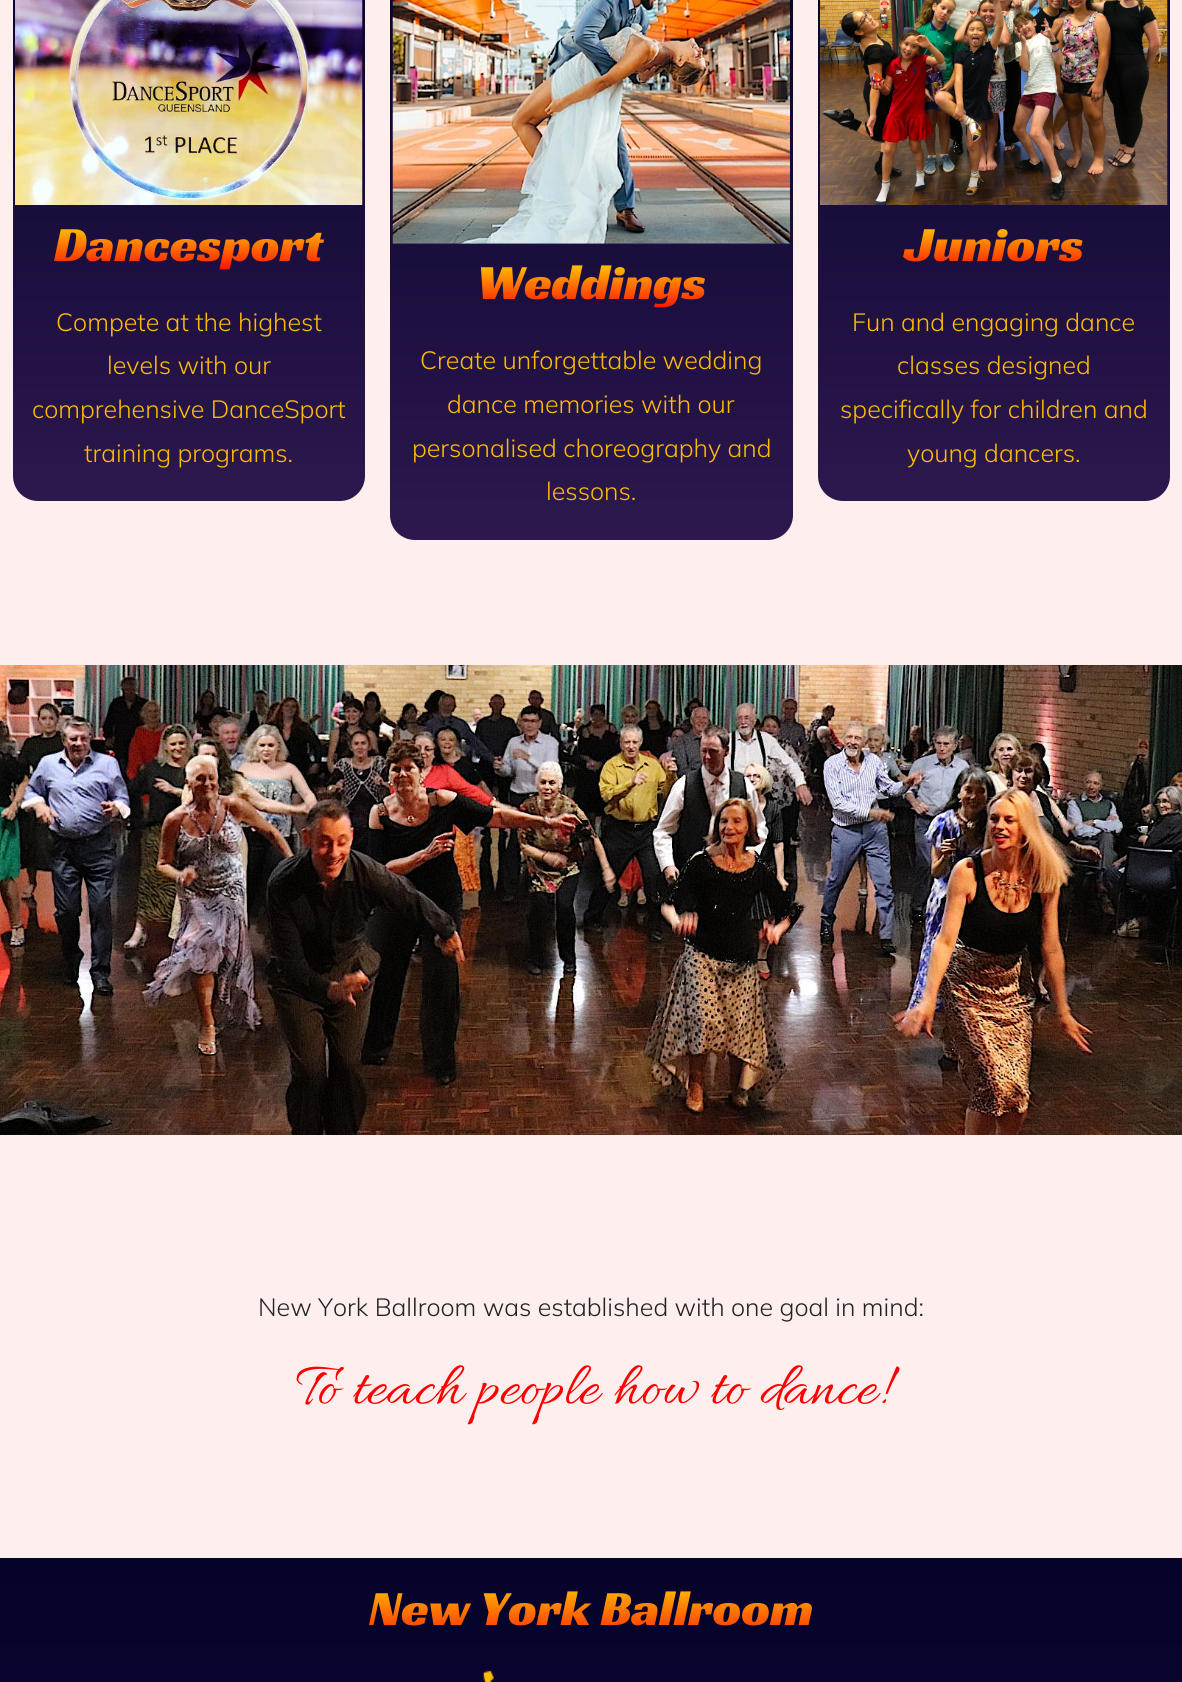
import math
import cairo


def round_path(ctx, x, y, w, h, r):
	ctx.new_sub_path()
	for i, (u, v) in enumerate([(x + w - r, y + h - r), (x + r, y + h - r), (x + r, y + r), (x + w - r, y + r)]):
		ctx.arc(u, v, r, i * math.pi / 2, (i + 1) * math.pi / 2)
	ctx.close_path()

def paste(ctx, path, x, y, w, h):
	ctx.save()
	ctx.set_source_surface(cairo.ImageSurface.create_from_png(path), x, y)
	ctx.rectangle(x, y, w, h)
	ctx.fill()
	ctx.restore()

def draw(ctx):
	ctx.set_source_rgb(1, 0.933, 0.933)
	ctx.paint()
	gradient = cairo.LinearGradient(189, -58, 189, 501)
	gradient.add_color_stop_rgba(0, 0.024, 0.012, 0.169, 1)
	gradient.add_color_stop_rgba(1, 0.173, 0.094, 0.302, 1)
	ctx.set_source(gradient)
	round_path(ctx, 13, -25, 352, 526, 25)
	ctx.fill()
	paste(ctx, 'media/1.png', 15, 0, 348, 205)
	ctx.select_font_face('Racing Sans One')
	ctx.set_font_size(50)
	gradient = cairo.LinearGradient(189, 212, 189, 274)
	gradient.add_color_stop_rgba(0, 1, 1, 0, 1)
	gradient.add_color_stop_rgba(1, 1, 0, 0, 1)
	ctx.set_source(gradient)
	ctx.move_to(54, 261)
	ctx.show_text('Dancesport')
	ctx.select_font_face('Mulish Light')
	ctx.set_font_size(25)
	ctx.set_source_rgb(1, 0.733, 0)
	for x, y, s in [
		(56, 331, 'Compete at the highest'),
		(107, 374, 'levels with our'),
		(32, 418, 'comprehensive DanceSport'),
		(84, 462, 'training programs.'),
	]:
		ctx.move_to(x, y)
		ctx.show_text(s)
	gradient = cairo.LinearGradient(591, -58, 591, 540)
	gradient.add_color_stop_rgba(0, 0.024, 0.012, 0.169, 1)
	gradient.add_color_stop_rgba(1, 0.173, 0.094, 0.302, 1)
	ctx.set_source(gradient)
	round_path(ctx, 390, -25, 403, 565, 25)
	ctx.fill()
	paste(ctx, 'media/2.png', 392, 0, 398, 244)
	ctx.select_font_face('Racing Sans One')
	ctx.set_font_size(50)
	gradient = cairo.LinearGradient(591, 250, 591, 313)
	gradient.add_color_stop_rgba(0, 1, 1, 0, 1)
	gradient.add_color_stop_rgba(1, 1, 0, 0, 1)
	ctx.set_source(gradient)
	ctx.move_to(477, 299)
	ctx.show_text('Weddings')
	ctx.select_font_face('Mulish Light')
	ctx.set_font_size(25)
	ctx.set_source_rgb(1, 0.733, 0)
	for x, y, s in [
		(420, 369, 'Create unforgettable wedding'),
		(447, 413, 'dance memories with our'),
		(412, 457, 'personalised choreography and'),
		(546, 500, 'lessons.'),
	]:
		ctx.move_to(x, y)
		ctx.show_text(s)
	gradient = cairo.LinearGradient(994, -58, 994, 501)
	gradient.add_color_stop_rgba(0, 0.024, 0.012, 0.169, 1)
	gradient.add_color_stop_rgba(1, 0.173, 0.094, 0.302, 1)
	ctx.set_source(gradient)
	round_path(ctx, 818, -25, 352, 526, 25)
	ctx.fill()
	paste(ctx, 'media/3.png', 820, 0, 348, 205)
	ctx.select_font_face('Racing Sans One')
	ctx.set_font_size(50)
	gradient = cairo.LinearGradient(994, 212, 994, 274)
	gradient.add_color_stop_rgba(0, 1, 1, 0, 1)
	gradient.add_color_stop_rgba(1, 1, 0, 0, 1)
	ctx.set_source(gradient)
	ctx.move_to(904, 261)
	ctx.show_text('Juniors')
	ctx.select_font_face('Mulish Light')
	ctx.set_font_size(25)
	ctx.set_source_rgb(1, 0.733, 0)
	for x, y, s in [
		(852, 331, 'Fun and engaging dance'),
		(897, 374, 'classes designed'),
		(840, 418, 'specifically for children and'),
		(907, 462, 'young dancers.'),
	]:
		ctx.move_to(x, y)
		ctx.show_text(s)
	paste(ctx, 'media/4.png', 0, 665, 1182, 470)
	ctx.set_source_rgb(0.133, 0.133, 0.133)
	ctx.move_to(258, 1316)
	ctx.show_text('New York Ballroom was established with one goal in mind:')
	ctx.select_font_face('Allura')
	ctx.set_font_size(62.5)
	ctx.set_source_rgb(1, 0, 0)
	ctx.move_to(296, 1403)
	ctx.show_text('To teach people how to dance!')
	gradient = cairo.LinearGradient(591, 1558, 591, 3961)
	gradient.add_color_stop_rgba(0, 0.024, 0.012, 0.169, 1)
	gradient.add_color_stop_rgba(1, 0.173, 0.094, 0.302, 1)
	ctx.set_source(gradient)
	ctx.rectangle(0, 1558, 1182, 124)
	ctx.fill()
	ctx.select_font_face('Racing Sans One')
	ctx.set_font_size(50)
	gradient = cairo.LinearGradient(591, 1563, 591, 1651)
	gradient.add_color_stop_rgba(0, 1, 1, 0, 1)
	gradient.add_color_stop_rgba(1, 1, 0, 0, 1)
	ctx.set_source(gradient)
	ctx.move_to(369, 1625)
	ctx.show_text('New York Ballroom')
	paste(ctx, 'media/5.png', 483, 1671, 11, 11)


surface = cairo.ImageSurface(cairo.FORMAT_RGB24, 1182, 1682)
ctx = cairo.Context(surface)
options = cairo.FontOptions()
options.set_hint_metrics(cairo.HINT_METRICS_OFF)
options.set_hint_style(cairo.HINT_STYLE_NONE)
ctx.set_font_options(options)
ctx.set_miter_limit(4)
draw(ctx)
surface.write_to_png('image.png')
